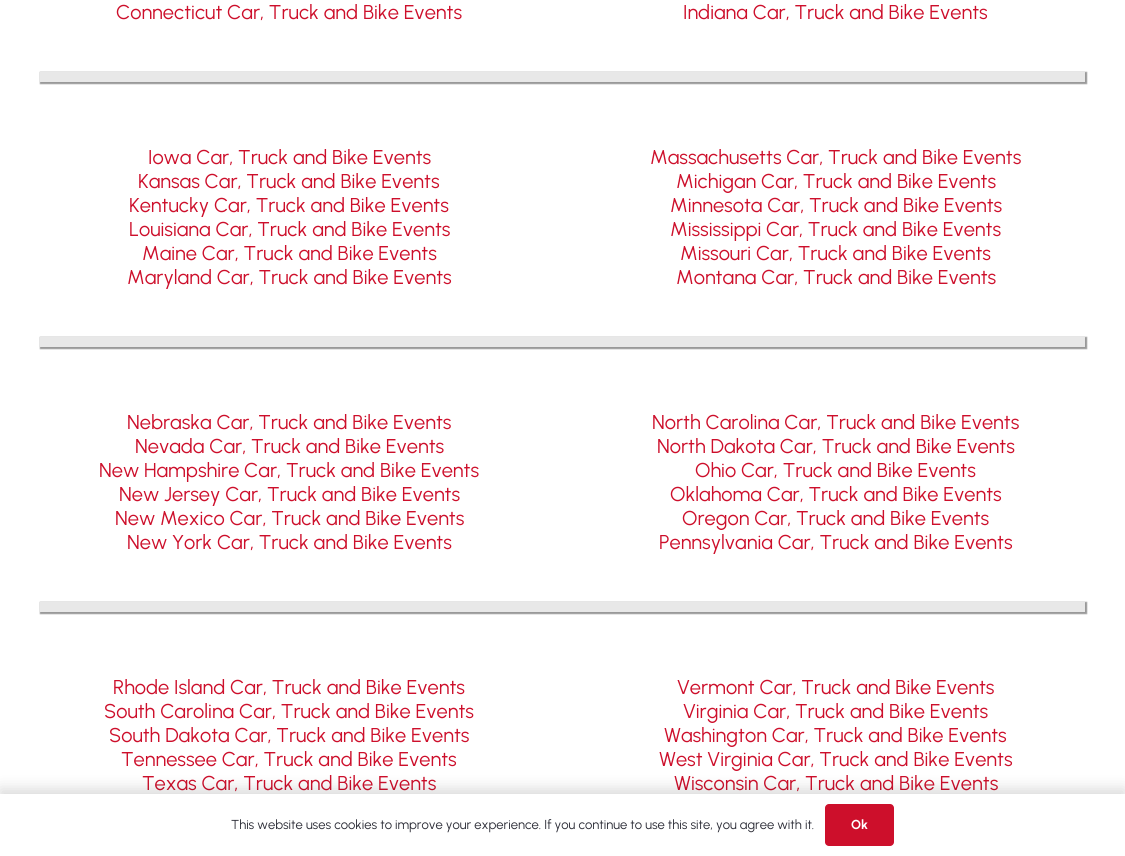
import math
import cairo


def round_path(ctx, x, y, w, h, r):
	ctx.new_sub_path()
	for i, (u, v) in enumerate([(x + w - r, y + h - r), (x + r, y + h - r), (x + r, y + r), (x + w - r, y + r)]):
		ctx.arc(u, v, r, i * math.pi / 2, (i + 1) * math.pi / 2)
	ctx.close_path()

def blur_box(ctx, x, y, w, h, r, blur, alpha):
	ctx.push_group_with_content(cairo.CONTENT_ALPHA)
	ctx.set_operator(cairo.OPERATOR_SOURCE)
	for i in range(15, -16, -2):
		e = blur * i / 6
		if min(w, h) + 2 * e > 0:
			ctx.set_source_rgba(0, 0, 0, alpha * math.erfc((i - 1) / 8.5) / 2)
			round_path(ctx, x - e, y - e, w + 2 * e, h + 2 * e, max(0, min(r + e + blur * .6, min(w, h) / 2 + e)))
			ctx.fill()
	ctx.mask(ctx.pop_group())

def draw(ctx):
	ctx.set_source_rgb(1, 1, 1)
	ctx.paint()
	ctx.select_font_face('Urbanist')
	ctx.set_font_size(20)
	ctx.set_source_rgb(0.804, 0.059, 0.169)
	ctx.move_to(116, 19)
	ctx.show_text('Connecticut Car, Truck and Bike Events')
	ctx.move_to(683, 19)
	ctx.show_text('Indiana Car, Truck and Bike Events')
	ctx.set_source_rgb(0.6, 0.6, 0.6)
	blur_box(ctx, 40, 72, 1047, 12, 0, 0.5, 1)
	ctx.set_source_rgb(0.91, 0.91, 0.91)
	ctx.rectangle(40, 72, 1045, 10)
	ctx.fill()
	ctx.set_source_rgb(0.804, 0.059, 0.169)
	for x, y, s in [
		(148, 164, 'Iowa Car, Truck and Bike Events'),
		(138, 188, 'Kansas Car, Truck and Bike Events'),
		(129, 212, 'Kentucky Car, Truck and Bike Events'),
		(129, 236, 'Louisiana Car, Truck and Bike Events'),
		(142, 260, 'Maine Car, Truck and Bike Events'),
		(127, 284, 'Maryland Car, Truck and Bike Events'),
		(650, 164, 'Massachusetts Car, Truck and Bike Events'),
		(676, 188, 'Michigan Car, Truck and Bike Events'),
		(670, 212, 'Minnesota Car, Truck and Bike Events'),
		(670, 236, 'Mississippi Car, Truck and Bike Events'),
		(680, 260, 'Missouri Car, Truck and Bike Events'),
		(676, 284, 'Montana Car, Truck and Bike Events'),
	]:
		ctx.move_to(x, y)
		ctx.show_text(s)
	ctx.set_source_rgb(0.6, 0.6, 0.6)
	blur_box(ctx, 40, 337, 1047, 12, 0, 0.5, 1)
	ctx.set_source_rgb(0.91, 0.91, 0.91)
	ctx.rectangle(40, 337, 1045, 10)
	ctx.fill()
	ctx.set_source_rgb(0.804, 0.059, 0.169)
	for x, y, s in [
		(127, 429, 'Nebraska Car, Truck and Bike Events'),
		(135, 453, 'Nevada Car, Truck and Bike Events'),
		(99, 477, 'New Hampshire Car, Truck and Bike Events'),
		(119, 501, 'New Jersey Car, Truck and Bike Events'),
		(115, 525, 'New Mexico Car, Truck and Bike Events'),
		(127, 549, 'New York Car, Truck and Bike Events'),
		(652, 429, 'North Carolina Car, Truck and Bike Events'),
		(657, 453, 'North Dakota Car, Truck and Bike Events'),
		(695, 477, 'Ohio Car, Truck and Bike Events'),
		(670, 501, 'Oklahoma Car, Truck and Bike Events'),
		(682, 525, 'Oregon Car, Truck and Bike Events'),
		(659, 549, 'Pennsylvania Car, Truck and Bike Events'),
	]:
		ctx.move_to(x, y)
		ctx.show_text(s)
	ctx.set_source_rgb(0.6, 0.6, 0.6)
	blur_box(ctx, 40, 602, 1047, 12, 0, 0.5, 1)
	ctx.set_source_rgb(0.91, 0.91, 0.91)
	ctx.rectangle(40, 602, 1045, 10)
	ctx.fill()
	ctx.set_source_rgb(0.804, 0.059, 0.169)
	for x, y, s in [
		(113, 694, 'Rhode Island Car, Truck and Bike Events'),
		(104, 718, 'South Carolina Car, Truck and Bike Events'),
		(109, 742, 'South Dakota Car, Truck and Bike Events'),
		(121, 766, 'Tennessee Car, Truck and Bike Events'),
		(142, 790, 'Texas Car, Truck and Bike Events'),
		(677, 694, 'Vermont Car, Truck and Bike Events'),
		(683, 718, 'Virginia Car, Truck and Bike Events'),
		(664, 742, 'Washington Car, Truck and Bike Events'),
		(659, 766, 'West Virginia Car, Truck and Bike Events'),
		(674, 790, 'Wisconsin Car, Truck and Bike Events'),
	]:
		ctx.move_to(x, y)
		ctx.show_text(s)
	ctx.set_source_rgb(0, 0, 0)
	blur_box(ctx, 0, 789, 1125, 62, 0, 7.5, 0.15)
	ctx.set_source_rgb(1, 1, 1)
	ctx.rectangle(0, 794, 1125, 62)
	ctx.fill()
	ctx.set_font_size(13)
	ctx.set_source_rgb(0.169, 0.173, 0.212)
	ctx.move_to(231, 829)
	ctx.show_text('This website uses cookies to improve your experience. If you continue to use this site, you agree with it.')
	ctx.set_source_rgb(0.804, 0.059, 0.169)
	round_path(ctx, 825, 804, 69, 42, 4)
	ctx.fill()
	ctx.select_font_face('Urbanist', cairo.FONT_SLANT_NORMAL, cairo.FONT_WEIGHT_BOLD)
	ctx.set_source_rgb(1, 1, 1)
	ctx.move_to(851, 829)
	ctx.show_text('Ok')


surface = cairo.ImageSurface(cairo.FORMAT_RGB24, 1125, 856)
ctx = cairo.Context(surface)
options = cairo.FontOptions()
options.set_hint_metrics(cairo.HINT_METRICS_OFF)
options.set_hint_style(cairo.HINT_STYLE_NONE)
ctx.set_font_options(options)
ctx.set_miter_limit(4)
draw(ctx)
surface.write_to_png('image.png')
